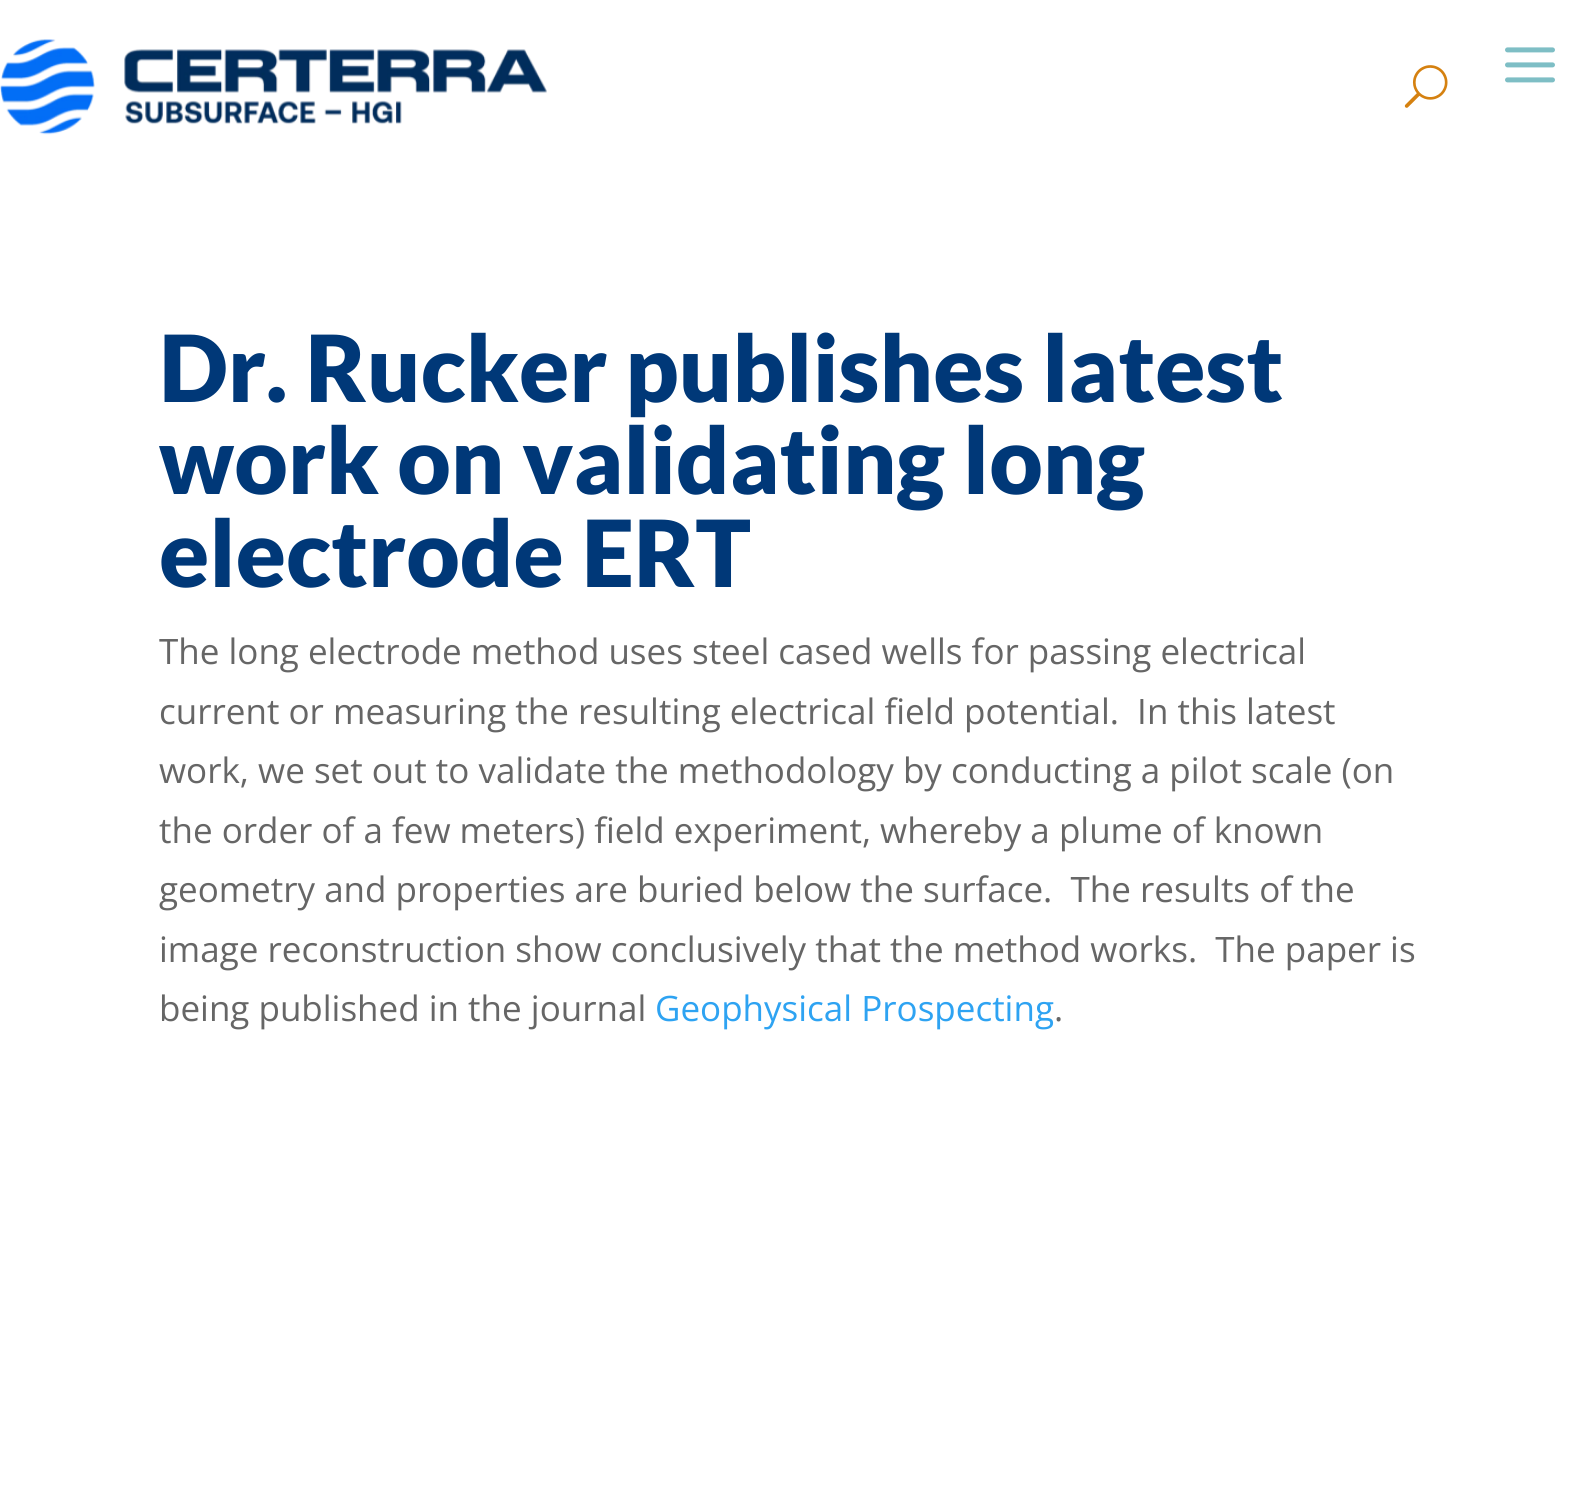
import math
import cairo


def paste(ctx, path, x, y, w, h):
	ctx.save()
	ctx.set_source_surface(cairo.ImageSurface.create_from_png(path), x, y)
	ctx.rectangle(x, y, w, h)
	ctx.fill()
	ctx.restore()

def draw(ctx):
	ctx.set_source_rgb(1, 1, 1)
	ctx.paint()
	paste(ctx, 'media/1.png', 0, 39, 547, 96)
	paste(ctx, 'media/2.png', 1404, 65, 44, 43)
	paste(ctx, 'media/3.png', 1505, 47, 50, 36)
	ctx.select_font_face('Lato Black')
	ctx.set_font_size(92.5)
	ctx.set_source_rgb(0, 0.22, 0.471)
	for x, y, s in [
		(159, 402, 'Dr. Rucker publishes latest'),
		(159, 494, 'work on validating long'),
		(159, 587, 'electrode ERT'),
	]:
		ctx.move_to(x, y)
		ctx.show_text(s)
	ctx.select_font_face('Open Sans')
	ctx.set_font_size(35)
	ctx.set_source_rgb(0.4, 0.4, 0.4)
	for x, y, s in [
		(159, 664, 'The long electrode method uses steel cased wells for passing electrical'),
		(159, 724, 'current or measuring the resulting electrical field potential.  In this latest'),
		(159, 783, 'work, we set out to validate the methodology by conducting a pilot scale (on'),
		(159, 843, 'the order of a few meters) field experiment, whereby a plume of known'),
		(159, 902, 'geometry and properties are buried below the surface.  The results of the'),
		(159, 962, 'image reconstruction show conclusively that the method works.  The paper is'),
		(159, 1021, 'being published in the journal'),
	]:
		ctx.move_to(x, y)
		ctx.show_text(s)
	ctx.set_source_rgb(0.18, 0.639, 0.949)
	ctx.move_to(655, 1021)
	ctx.show_text('Geophysical Prospecting')
	ctx.set_source_rgb(0.4, 0.4, 0.4)
	ctx.move_to(1054, 1021)
	ctx.show_text('.')


surface = cairo.ImageSurface(cairo.FORMAT_RGB24, 1584, 1501)
ctx = cairo.Context(surface)
options = cairo.FontOptions()
options.set_hint_metrics(cairo.HINT_METRICS_OFF)
options.set_hint_style(cairo.HINT_STYLE_NONE)
ctx.set_font_options(options)
ctx.set_miter_limit(4)
draw(ctx)
surface.write_to_png('image.png')
